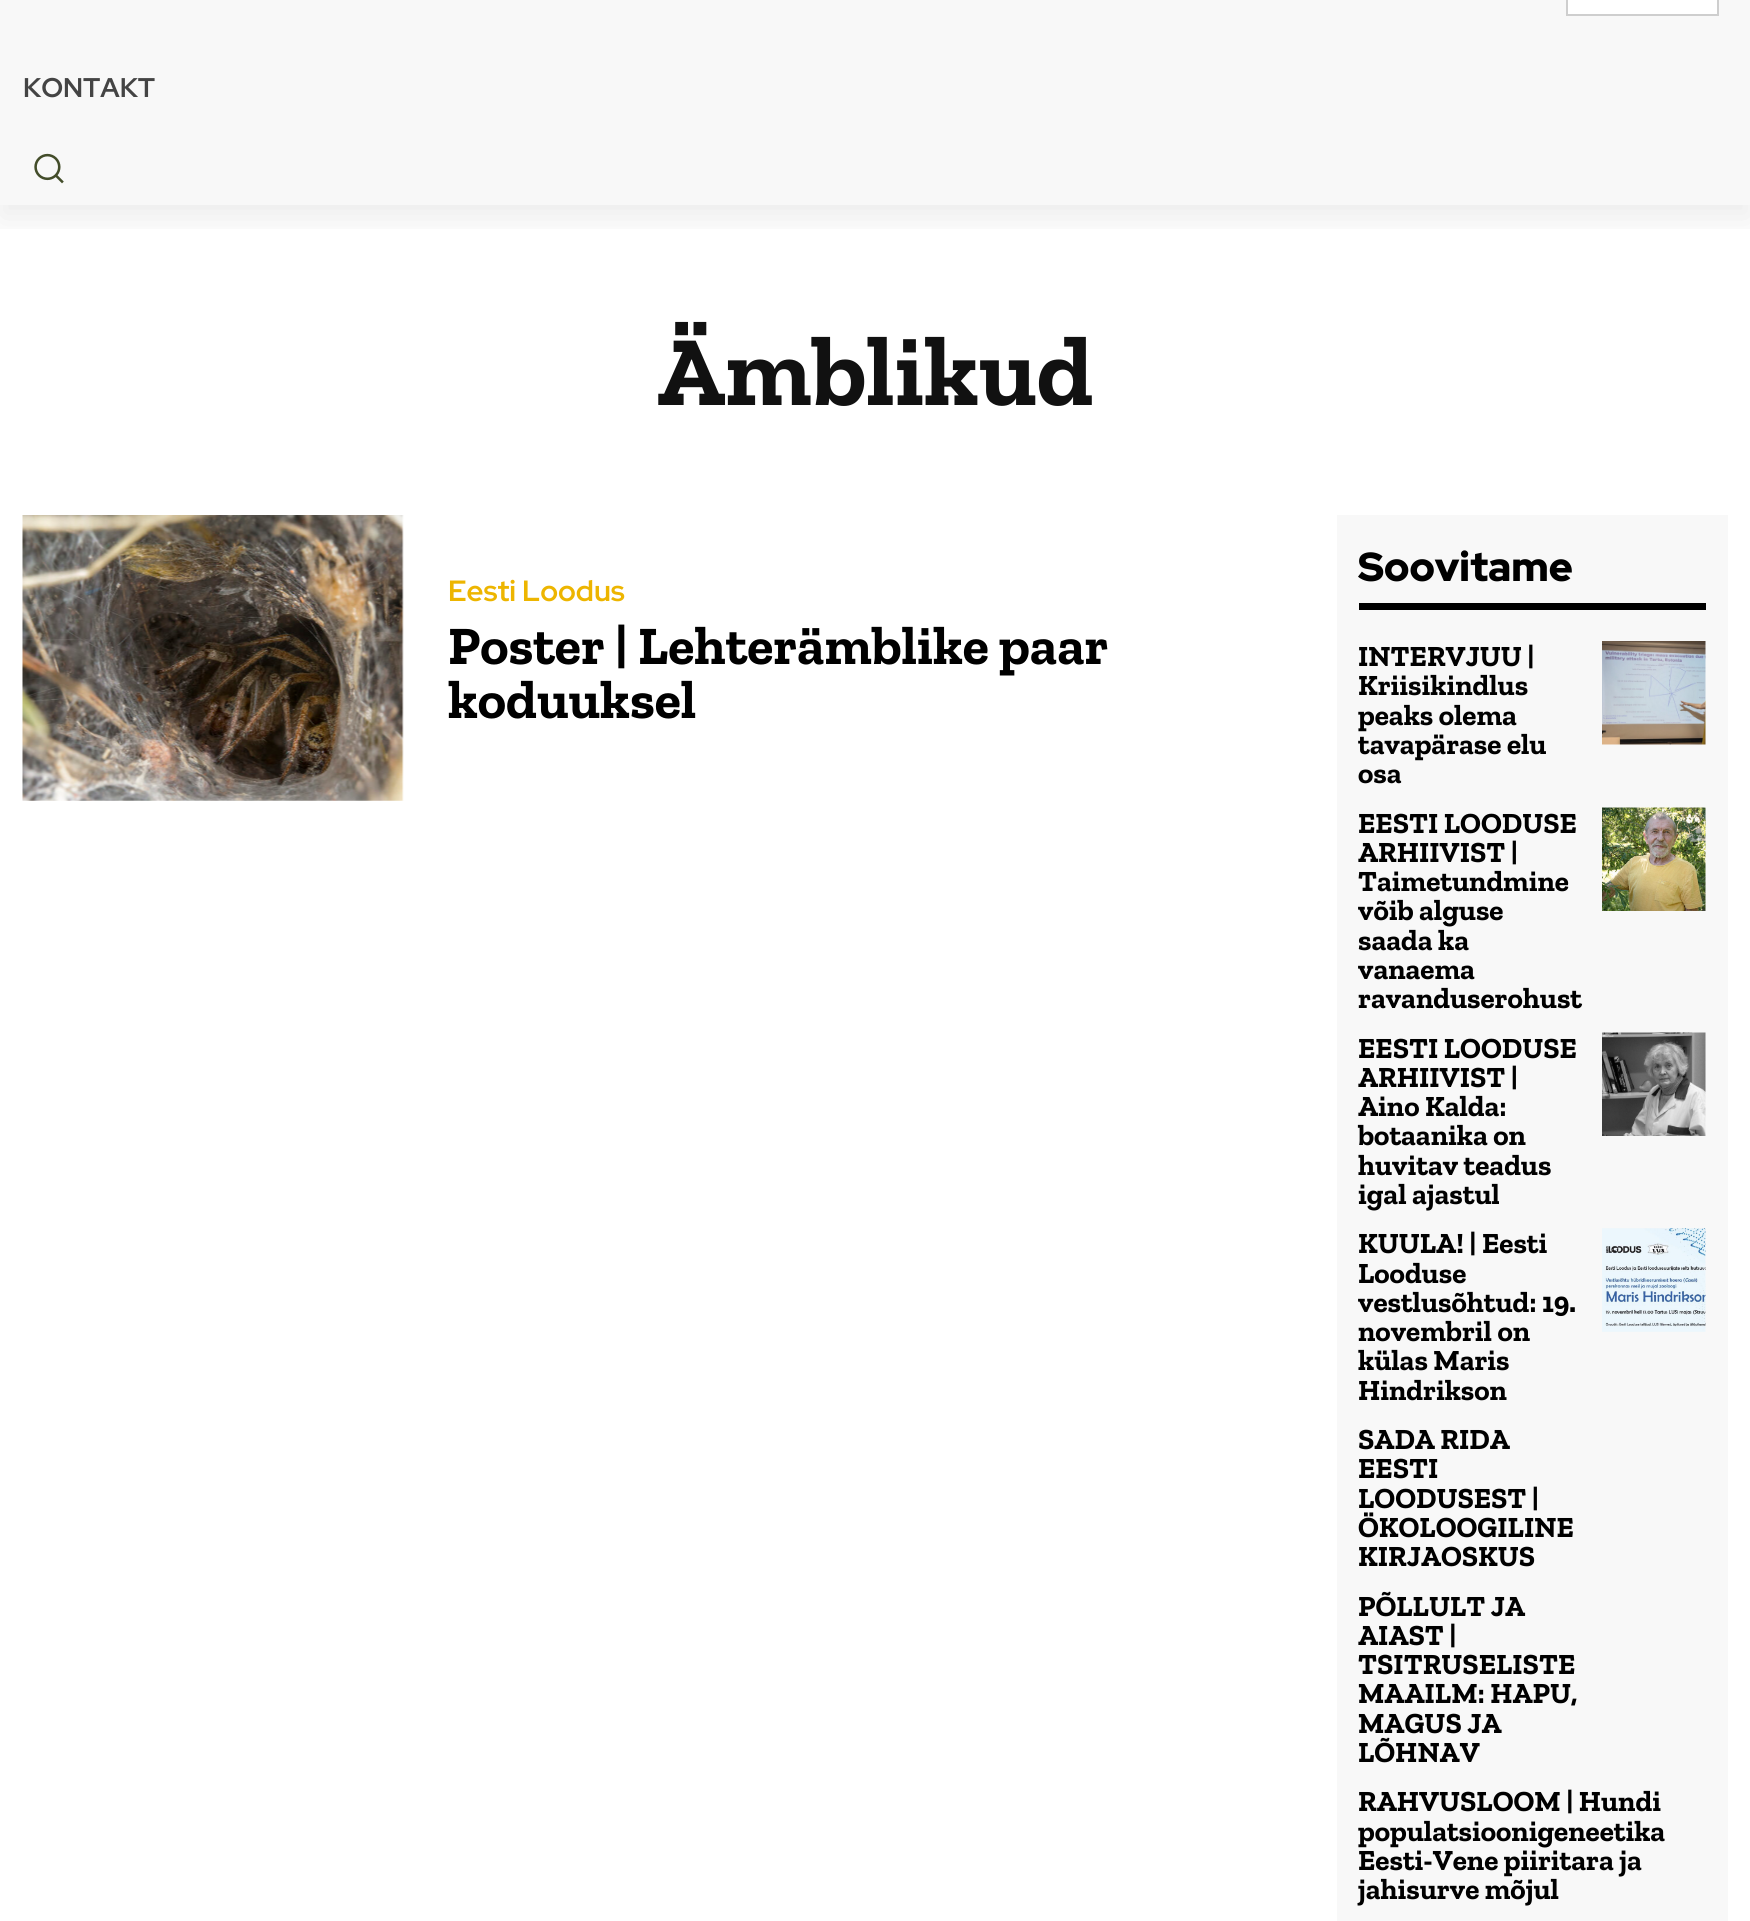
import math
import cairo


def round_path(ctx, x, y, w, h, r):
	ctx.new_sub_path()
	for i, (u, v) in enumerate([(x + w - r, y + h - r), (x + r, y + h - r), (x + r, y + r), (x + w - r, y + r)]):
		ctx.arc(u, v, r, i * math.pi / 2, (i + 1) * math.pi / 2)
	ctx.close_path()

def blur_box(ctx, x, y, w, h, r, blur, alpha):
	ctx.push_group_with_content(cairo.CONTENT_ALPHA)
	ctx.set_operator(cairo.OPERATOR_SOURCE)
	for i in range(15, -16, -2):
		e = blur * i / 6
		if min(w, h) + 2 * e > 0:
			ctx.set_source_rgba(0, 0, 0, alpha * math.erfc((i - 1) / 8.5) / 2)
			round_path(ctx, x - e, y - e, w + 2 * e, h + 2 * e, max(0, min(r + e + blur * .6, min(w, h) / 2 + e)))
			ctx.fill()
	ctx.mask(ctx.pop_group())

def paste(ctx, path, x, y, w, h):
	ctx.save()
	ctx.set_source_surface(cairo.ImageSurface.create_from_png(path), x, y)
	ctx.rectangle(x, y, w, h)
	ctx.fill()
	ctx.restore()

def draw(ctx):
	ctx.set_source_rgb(1, 1, 1)
	ctx.paint()
	ctx.set_source_rgb(0.969, 0.969, 0.969)
	ctx.rectangle(0, 0, 1750, 205)
	ctx.fill()
	ctx.rectangle(1567, -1, 151, 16)
	ctx.set_source_rgb(0.808, 0.808, 0.808)
	ctx.stroke()
	ctx.set_source_rgb(1, 1, 1)
	ctx.rectangle(1568, 0, 149, 14)
	ctx.fill()
	ctx.save()
	ctx.rectangle(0, 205, 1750, 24)
	ctx.clip()
	ctx.set_source_rgb(0, 0, 0)
	blur_box(ctx, 0, -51, 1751, 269, 0, 17, 0.08)
	ctx.restore()
	ctx.select_font_face('Red Hat Display', cairo.FONT_SLANT_NORMAL, cairo.FONT_WEIGHT_BOLD)
	ctx.set_font_size(27)
	ctx.set_source_rgb(0.267, 0.267, 0.267)
	ctx.move_to(23, 97)
	ctx.show_text('KONTAKT')
	paste(ctx, 'media/1.png', 34, 153, 30, 31)
	ctx.select_font_face('Zilla Slab', cairo.FONT_SLANT_NORMAL, cairo.FONT_WEIGHT_BOLD)
	ctx.set_font_size(99)
	ctx.set_source_rgb(0.067, 0.067, 0.067)
	ctx.move_to(657, 405)
	ctx.show_text('Ämblikud')
	paste(ctx, 'media/2.png', 22, 515, 382, 286)
	ctx.select_font_face('Red Hat Display', cairo.FONT_SLANT_NORMAL, cairo.FONT_WEIGHT_BOLD)
	ctx.set_font_size(29.25)
	ctx.set_source_rgb(0.929, 0.71, 0)
	ctx.move_to(448, 601)
	ctx.show_text('Eesti Loodus')
	ctx.select_font_face('Zilla Slab', cairo.FONT_SLANT_NORMAL, cairo.FONT_WEIGHT_BOLD)
	ctx.set_font_size(54)
	ctx.set_source_rgb(0, 0, 0)
	ctx.move_to(448, 664)
	ctx.show_text('Poster | Lehterämblike paar')
	ctx.move_to(448, 718)
	ctx.show_text('koduuksel')
	ctx.set_source_rgb(0.969, 0.969, 0.969)
	ctx.rectangle(1337, 515, 391, 1406)
	ctx.fill()
	ctx.set_source_rgb(0, 0, 0)
	ctx.rectangle(1359, 603, 347, 7)
	ctx.fill()
	ctx.select_font_face('Red Hat Display Black')
	ctx.set_font_size(40.5)
	ctx.move_to(1358, 581)
	ctx.show_text('Soovitame')
	ctx.select_font_face('Zilla Slab', cairo.FONT_SLANT_NORMAL, cairo.FONT_WEIGHT_BOLD)
	ctx.set_font_size(29.25)
	for x, y, s in [
		(1358, 666, 'INTERVJUU |'),
		(1358, 695, 'Kriisikindlus'),
		(1358, 725, 'peaks olema'),
		(1358, 754, 'tavapärase elu'),
		(1358, 783, 'osa'),
	]:
		ctx.move_to(x, y)
		ctx.show_text(s)
	paste(ctx, 'media/3.png', 1602, 641, 104, 104)
	for x, y, s in [
		(1358, 833, 'EESTI LOODUSE'),
		(1358, 862, 'ARHIIVIST |'),
		(1358, 891, 'Taimetundmine'),
		(1358, 920, 'võib alguse'),
		(1358, 950, 'saada ka'),
		(1358, 979, 'vanaema'),
		(1358, 1008, 'ravanduserohust'),
	]:
		ctx.move_to(x, y)
		ctx.show_text(s)
	paste(ctx, 'media/4.png', 1602, 807, 104, 104)
	for x, y, s in [
		(1358, 1058, 'EESTI LOODUSE'),
		(1358, 1087, 'ARHIIVIST |'),
		(1358, 1116, 'Aino Kalda:'),
		(1358, 1145, 'botaanika on'),
		(1358, 1175, 'huvitav teadus'),
		(1358, 1204, 'igal ajastul'),
	]:
		ctx.move_to(x, y)
		ctx.show_text(s)
	paste(ctx, 'media/5.png', 1602, 1032, 104, 104)
	for x, y, s in [
		(1358, 1253, 'KUULA! | Eesti'),
		(1358, 1283, 'Looduse'),
		(1358, 1312, 'vestlusõhtud: 19.'),
		(1358, 1341, 'novembril on'),
		(1358, 1370, 'külas Maris'),
		(1358, 1400, 'Hindrikson'),
	]:
		ctx.move_to(x, y)
		ctx.show_text(s)
	paste(ctx, 'media/6.png', 1602, 1228, 104, 104)
	for x, y, s in [
		(1358, 1449, 'SADA RIDA'),
		(1358, 1478, 'EESTI'),
		(1358, 1508, 'LOODUSEST |'),
		(1358, 1537, 'ÖKOLOOGILINE'),
		(1358, 1566, 'KIRJAOSKUS'),
		(1358, 1616, 'PÕLLULT JA'),
		(1358, 1645, 'AIAST |'),
		(1358, 1674, 'TSITRUSELISTE'),
		(1358, 1703, 'MAAILM: HAPU,'),
		(1358, 1733, 'MAGUS JA'),
		(1358, 1762, 'LÕHNAV'),
		(1358, 1811, 'RAHVUSLOOM | Hundi'),
		(1358, 1841, 'populatsioonigeneetika'),
		(1358, 1870, 'Eesti-Vene piiritara ja'),
		(1358, 1899, 'jahisurve mõjul'),
	]:
		ctx.move_to(x, y)
		ctx.show_text(s)


surface = cairo.ImageSurface(cairo.FORMAT_RGB24, 1750, 1921)
ctx = cairo.Context(surface)
options = cairo.FontOptions()
options.set_hint_metrics(cairo.HINT_METRICS_OFF)
options.set_hint_style(cairo.HINT_STYLE_NONE)
ctx.set_font_options(options)
ctx.set_miter_limit(4)
draw(ctx)
surface.write_to_png('image.png')
